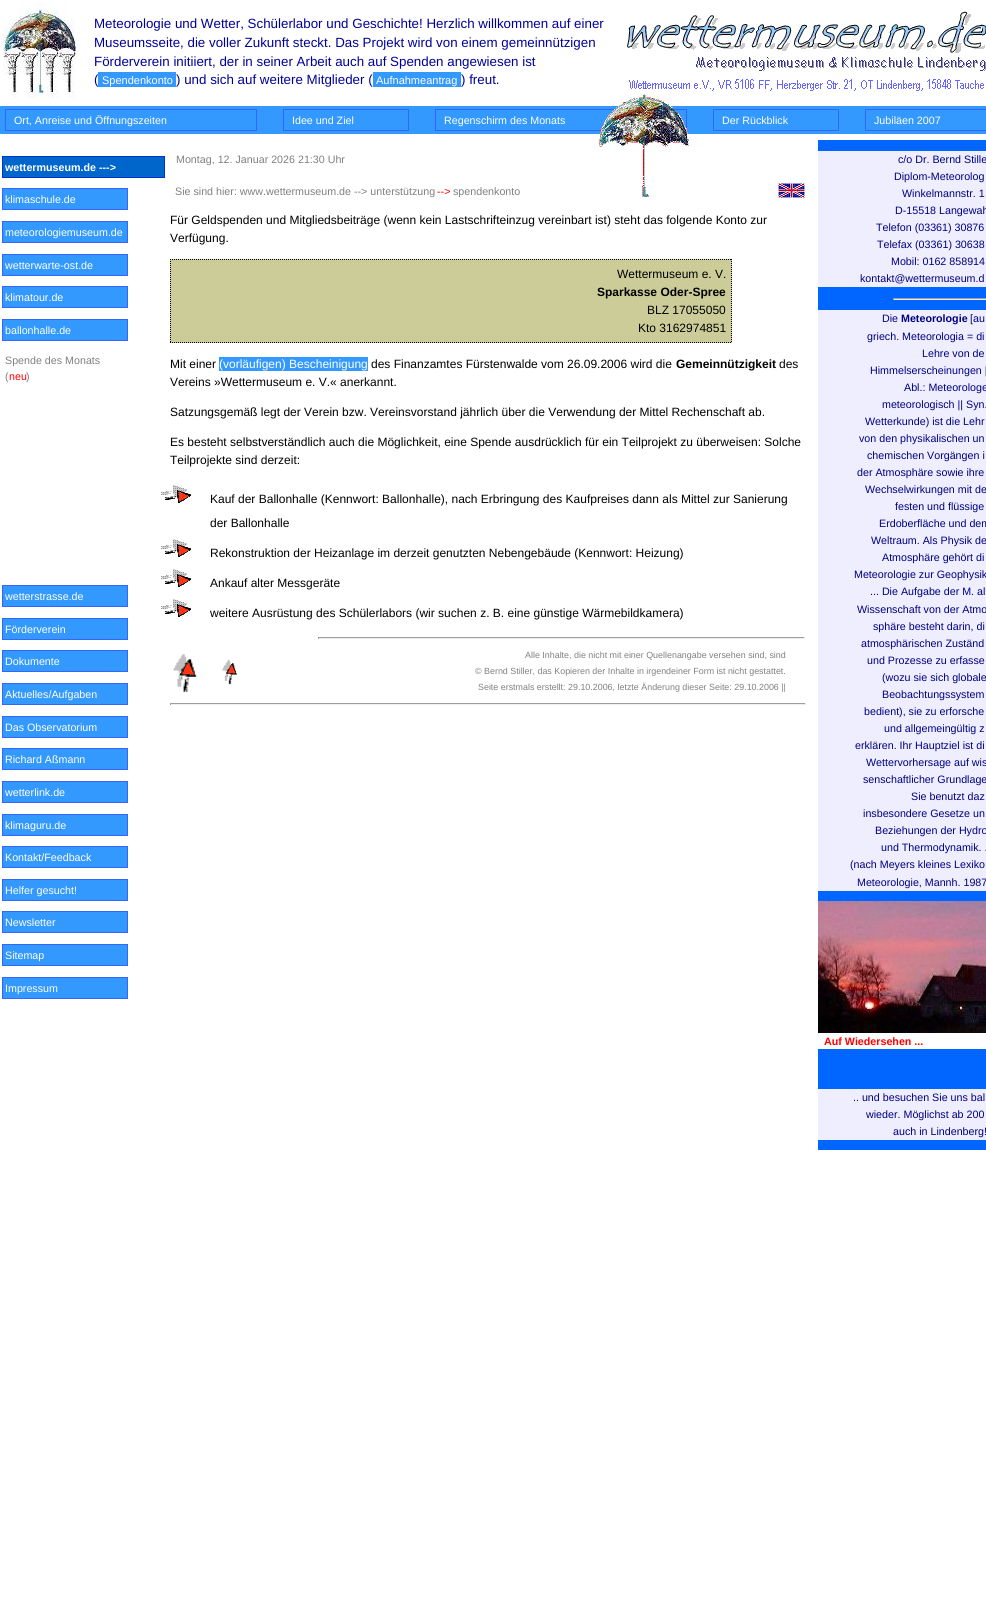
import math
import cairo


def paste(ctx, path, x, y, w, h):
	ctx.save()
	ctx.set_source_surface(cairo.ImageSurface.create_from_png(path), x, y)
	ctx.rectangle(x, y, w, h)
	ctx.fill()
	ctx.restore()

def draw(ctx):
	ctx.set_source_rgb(1, 1, 1)
	ctx.paint()
	paste(ctx, 'media/1.png', 3, 3, 74, 96)
	ctx.select_font_face('Liberation Sans')
	ctx.set_font_size(13.35)
	ctx.set_source_rgb(0, 0, 0.6)
	for x, y, s in [
		(94, 28, 'Meteorologie und Wetter, Schülerlabor und Geschichte! Herzlich willkommen auf einer'),
		(94, 47, 'Museumsseite, die voller Zukunft steckt. Das Projekt wird von einem gemeinnützigen'),
		(94, 66, 'Förderverein initiiert, der in seiner Arbeit auch auf Spenden angewiesen ist'),
		(94, 84, '('),
	]:
		ctx.move_to(x, y)
		ctx.show_text(s)
	ctx.set_source_rgb(0.2, 0.6, 1)
	ctx.rectangle(98, 72, 78, 15)
	ctx.fill()
	ctx.set_font_size(11)
	ctx.set_source_rgb(1, 1, 1)
	ctx.move_to(102, 84)
	ctx.show_text('Spendenkonto')
	ctx.set_font_size(13.35)
	ctx.set_source_rgb(0, 0, 0.6)
	ctx.move_to(176, 84)
	ctx.show_text(') und sich auf weitere Mitglieder (')
	ctx.set_source_rgb(0.2, 0.6, 1)
	ctx.rectangle(373, 72, 88, 15)
	ctx.fill()
	ctx.set_font_size(11)
	ctx.set_source_rgb(1, 1, 1)
	ctx.move_to(376, 84)
	ctx.show_text('Aufnahmeantrag')
	ctx.set_font_size(13.35)
	ctx.set_source_rgb(0, 0, 0.6)
	ctx.move_to(461, 84)
	ctx.show_text(') freut.')
	paste(ctx, 'media/2.png', 627, 11, 359, 80)
	ctx.set_source_rgb(0.2, 0.6, 1)
	ctx.rectangle(0, 106, 986, 28)
	ctx.fill()
	ctx.rectangle(435.5, 109.5, 251, 21)
	ctx.set_source_rgb(0.2, 0.4, 1)
	ctx.set_line_width(1)
	ctx.stroke()
	paste(ctx, 'media/3.png', 599, 94, 90, 103)
	ctx.rectangle(5.5, 109.5, 251, 21)
	ctx.stroke()
	ctx.set_font_size(10.7)
	ctx.set_source_rgb(1, 1, 1)
	ctx.move_to(14, 124)
	ctx.show_text('Ort, Anreise und Öffnungszeiten')
	ctx.rectangle(283.5, 109.5, 125, 21)
	ctx.set_source_rgb(0.2, 0.4, 1)
	ctx.stroke()
	ctx.set_source_rgb(1, 1, 1)
	ctx.move_to(292, 124)
	ctx.show_text('Idee und Ziel')
	ctx.move_to(444, 124)
	ctx.show_text('Regenschirm des Monats')
	ctx.rectangle(713.5, 109.5, 125, 21)
	ctx.set_source_rgb(0.2, 0.4, 1)
	ctx.stroke()
	ctx.set_source_rgb(1, 1, 1)
	ctx.move_to(722, 124)
	ctx.show_text('Der Rückblick')
	ctx.rectangle(865.5, 109.5, 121, 21)
	ctx.set_source_rgb(0.2, 0.4, 1)
	ctx.stroke()
	ctx.set_source_rgb(1, 1, 1)
	ctx.move_to(874, 124)
	ctx.show_text('Jubiläen 2007')
	ctx.set_source_rgb(0, 0.4, 0.8)
	ctx.rectangle(2.5, 156.5, 162, 21)
	ctx.fill_preserve()
	ctx.set_source_rgb(0, 0.2, 0.8)
	ctx.stroke()
	ctx.select_font_face('Liberation Sans', cairo.FONT_SLANT_NORMAL, cairo.FONT_WEIGHT_BOLD)
	ctx.set_source_rgb(1, 1, 1)
	ctx.move_to(5, 171)
	ctx.show_text('wettermuseum.de --->')
	ctx.set_source_rgb(0.2, 0.6, 1)
	ctx.rectangle(2.5, 188.5, 125, 21)
	ctx.fill_preserve()
	ctx.set_source_rgb(0.2, 0.4, 1)
	ctx.stroke()
	ctx.select_font_face('Liberation Sans')
	ctx.set_source_rgb(1, 1, 1)
	ctx.move_to(5, 203)
	ctx.show_text('klimaschule.de')
	ctx.set_source_rgb(0.2, 0.6, 1)
	ctx.rectangle(2.5, 221.5, 125, 21)
	ctx.fill_preserve()
	ctx.set_source_rgb(0.2, 0.4, 1)
	ctx.stroke()
	ctx.set_source_rgb(1, 1, 1)
	ctx.move_to(5, 236)
	ctx.show_text('meteorologiemuseum.de')
	ctx.set_source_rgb(0.2, 0.6, 1)
	ctx.rectangle(2.5, 254.5, 125, 21)
	ctx.fill_preserve()
	ctx.set_source_rgb(0.2, 0.4, 1)
	ctx.stroke()
	ctx.set_source_rgb(1, 1, 1)
	ctx.move_to(5, 269)
	ctx.show_text('wetterwarte-ost.de')
	ctx.set_source_rgb(0.2, 0.6, 1)
	ctx.rectangle(2.5, 286.5, 125, 21)
	ctx.fill_preserve()
	ctx.set_source_rgb(0.2, 0.4, 1)
	ctx.stroke()
	ctx.set_source_rgb(1, 1, 1)
	ctx.move_to(5, 301)
	ctx.show_text('klimatour.de')
	ctx.set_source_rgb(0.2, 0.6, 1)
	ctx.rectangle(2.5, 319.5, 125, 21)
	ctx.fill_preserve()
	ctx.set_source_rgb(0.2, 0.4, 1)
	ctx.stroke()
	ctx.set_source_rgb(1, 1, 1)
	ctx.move_to(5, 334)
	ctx.show_text('ballonhalle.de')
	ctx.set_source_rgb(0.502, 0.502, 0.502)
	ctx.move_to(5, 364)
	ctx.show_text('Spende des Monats')
	ctx.move_to(5, 380)
	ctx.show_text('(')
	ctx.set_source_rgb(1, 0, 0)
	ctx.move_to(9, 380)
	ctx.show_text('neu')
	ctx.set_source_rgb(0.502, 0.502, 0.502)
	ctx.move_to(26, 380)
	ctx.show_text(')')
	ctx.set_source_rgb(0.2, 0.6, 1)
	ctx.rectangle(2.5, 585.5, 125, 21)
	ctx.fill_preserve()
	ctx.set_source_rgb(0.2, 0.4, 1)
	ctx.stroke()
	ctx.set_source_rgb(1, 1, 1)
	ctx.move_to(5, 600)
	ctx.show_text('wetterstrasse.de')
	ctx.set_source_rgb(0.2, 0.6, 1)
	ctx.rectangle(2.5, 618.5, 125, 21)
	ctx.fill_preserve()
	ctx.set_source_rgb(0.2, 0.4, 1)
	ctx.stroke()
	ctx.set_source_rgb(1, 1, 1)
	ctx.move_to(5, 633)
	ctx.show_text('Förderverein')
	ctx.set_source_rgb(0.2, 0.6, 1)
	ctx.rectangle(2.5, 650.5, 125, 21)
	ctx.fill_preserve()
	ctx.set_source_rgb(0.2, 0.4, 1)
	ctx.stroke()
	ctx.set_source_rgb(1, 1, 1)
	ctx.move_to(5, 665)
	ctx.show_text('Dokumente')
	ctx.set_source_rgb(0.2, 0.6, 1)
	ctx.rectangle(2.5, 683.5, 125, 21)
	ctx.fill_preserve()
	ctx.set_source_rgb(0.2, 0.4, 1)
	ctx.stroke()
	ctx.set_source_rgb(1, 1, 1)
	ctx.move_to(5, 698)
	ctx.show_text('Aktuelles/Aufgaben')
	ctx.set_source_rgb(0.2, 0.6, 1)
	ctx.rectangle(2.5, 716.5, 125, 21)
	ctx.fill_preserve()
	ctx.set_source_rgb(0.2, 0.4, 1)
	ctx.stroke()
	ctx.set_source_rgb(1, 1, 1)
	ctx.move_to(5, 731)
	ctx.show_text('Das Observatorium')
	ctx.set_source_rgb(0.2, 0.6, 1)
	ctx.rectangle(2.5, 748.5, 125, 21)
	ctx.fill_preserve()
	ctx.set_source_rgb(0.2, 0.4, 1)
	ctx.stroke()
	ctx.set_source_rgb(1, 1, 1)
	ctx.move_to(5, 763)
	ctx.show_text('Richard Aßmann')
	ctx.set_source_rgb(0.2, 0.6, 1)
	ctx.rectangle(2.5, 781.5, 125, 21)
	ctx.fill_preserve()
	ctx.set_source_rgb(0.2, 0.4, 1)
	ctx.stroke()
	ctx.set_source_rgb(1, 1, 1)
	ctx.move_to(5, 796)
	ctx.show_text('wetterlink.de')
	ctx.set_source_rgb(0.2, 0.6, 1)
	ctx.rectangle(2.5, 814.5, 125, 21)
	ctx.fill_preserve()
	ctx.set_source_rgb(0.2, 0.4, 1)
	ctx.stroke()
	ctx.set_source_rgb(1, 1, 1)
	ctx.move_to(5, 829)
	ctx.show_text('klimaguru.de')
	ctx.set_source_rgb(0.2, 0.6, 1)
	ctx.rectangle(2.5, 846.5, 125, 21)
	ctx.fill_preserve()
	ctx.set_source_rgb(0.2, 0.4, 1)
	ctx.stroke()
	ctx.set_source_rgb(1, 1, 1)
	ctx.move_to(5, 861)
	ctx.show_text('Kontakt/Feedback')
	ctx.set_source_rgb(0.2, 0.6, 1)
	ctx.rectangle(2.5, 879.5, 125, 21)
	ctx.fill_preserve()
	ctx.set_source_rgb(0.2, 0.4, 1)
	ctx.stroke()
	ctx.set_source_rgb(1, 1, 1)
	ctx.move_to(5, 894)
	ctx.show_text('Helfer gesucht!')
	ctx.set_source_rgb(0.2, 0.6, 1)
	ctx.rectangle(2.5, 911.5, 125, 21)
	ctx.fill_preserve()
	ctx.set_source_rgb(0.2, 0.4, 1)
	ctx.stroke()
	ctx.set_source_rgb(1, 1, 1)
	ctx.move_to(5, 926)
	ctx.show_text('Newsletter')
	ctx.set_source_rgb(0.2, 0.6, 1)
	ctx.rectangle(2.5, 944.5, 125, 21)
	ctx.fill_preserve()
	ctx.set_source_rgb(0.2, 0.4, 1)
	ctx.stroke()
	ctx.set_source_rgb(1, 1, 1)
	ctx.move_to(5, 959)
	ctx.show_text('Sitemap')
	ctx.set_source_rgb(0.2, 0.6, 1)
	ctx.rectangle(2.5, 977.5, 125, 21)
	ctx.fill_preserve()
	ctx.set_source_rgb(0.2, 0.4, 1)
	ctx.stroke()
	ctx.set_source_rgb(1, 1, 1)
	ctx.move_to(5, 992)
	ctx.show_text('Impressum')
	ctx.set_source_rgb(0.502, 0.502, 0.502)
	ctx.move_to(176, 163)
	ctx.show_text('Montag, 12. Januar 2026 21:30 Uhr')
	ctx.set_source_rgb(0, 0.4, 1)
	ctx.rectangle(818, 140, 168, 1010)
	ctx.fill()
	ctx.set_source_rgb(0.933, 0.933, 1)
	ctx.rectangle(818, 151, 168, 136)
	ctx.fill()
	ctx.set_source_rgb(0, 0, 0.502)
	for x, y, s in [
		(898, 163, 'c/o Dr. Bernd Stille'),
		(894, 180, 'Diplom-Meteorolog'),
		(902, 197, 'Winkelmannstr. 1'),
		(895, 214, 'D-15518 Langewah'),
		(876, 231, 'Telefon (03361) 30876'),
		(877, 248, 'Telefax (03361) 30638'),
		(891, 265, 'Mobil: 0162 858914'),
		(860, 282, 'kontakt@wettermuseum.d'),
	]:
		ctx.move_to(x, y)
		ctx.show_text(s)
	ctx.set_source_rgb(0.624, 0.624, 0.624)
	ctx.rectangle(893, 298, 93, 1)
	ctx.fill()
	ctx.set_source_rgb(0.933, 0.933, 0.933)
	ctx.rectangle(893, 299, 93, 1)
	ctx.fill()
	ctx.set_source_rgb(0.624, 0.624, 0.624)
	ctx.rectangle(893, 298, 1, 2)
	ctx.fill()
	ctx.set_source_rgb(0.933, 0.933, 1)
	ctx.rectangle(818, 310, 168, 581)
	ctx.fill()
	ctx.set_source_rgb(0, 0, 0.502)
	ctx.move_to(882, 322)
	ctx.show_text('Die')
	ctx.select_font_face('Liberation Sans', cairo.FONT_SLANT_NORMAL, cairo.FONT_WEIGHT_BOLD)
	ctx.move_to(901, 322)
	ctx.show_text('Meteorologie')
	ctx.select_font_face('Liberation Sans')
	for x, y, s in [
		(970, 322, '[au'),
		(867, 340, 'griech. Meteorologia = di'),
		(922, 357, 'Lehre von de'),
		(870, 374, 'Himmelserscheinungen |'),
		(904, 391, 'Abl.: Meteorologe'),
		(882, 408, 'meteorologisch || Syn.'),
		(865, 425, 'Wetterkunde) ist die Lehr'),
		(859, 442, 'von den physikalischen un'),
		(867, 459, 'chemischen Vorgängen i'),
		(857, 476, 'der Atmosphäre sowie ihre'),
		(865, 493, 'Wechselwirkungen mit de'),
		(895, 510, 'festen und flüssige'),
		(879, 527, 'Erdoberfläche und dem'),
		(871, 544, 'Weltraum. Als Physik de'),
		(882, 561, 'Atmosphäre gehört di'),
		(854, 578, 'Meteorologie zur Geophysik'),
		(870, 595, '... Die Aufgabe der M. al'),
		(857, 613, 'Wissenschaft von der Atmo'),
		(873, 630, 'sphäre besteht darin, di'),
		(861, 647, 'atmosphärischen Zuständ'),
		(867, 664, 'und Prozesse zu erfasse'),
		(882, 681, '(wozu sie sich globale'),
		(882, 698, 'Beobachtungssystem'),
		(864, 715, 'bedient), sie zu erforsche'),
		(884, 732, 'und allgemeingültig z'),
		(855, 749, 'erklären. Ihr Hauptziel ist di'),
		(866, 766, 'Wettervorhersage auf wis'),
		(863, 783, 'senschaftlicher Grundlage'),
		(911, 800, 'Sie benutzt daz'),
		(863, 817, 'insbesondere Gesetze un'),
		(875, 834, 'Beziehungen der Hydro'),
		(881, 851, 'und Thermodynamik. .'),
		(850, 868, '(nach Meyers kleines Lexiko'),
		(857, 886, 'Meteorologie, Mannh. 1987'),
	]:
		ctx.move_to(x, y)
		ctx.show_text(s)
	ctx.set_source_rgb(1, 1, 1)
	ctx.rectangle(818, 1033, 168, 16)
	ctx.fill()
	paste(ctx, 'media/4.png', 818, 901, 168, 132)
	ctx.select_font_face('Liberation Sans', cairo.FONT_SLANT_NORMAL, cairo.FONT_WEIGHT_BOLD)
	ctx.set_source_rgb(1, 0, 0)
	ctx.move_to(824, 1045)
	ctx.show_text('Auf Wiedersehen ...')
	ctx.set_source_rgb(0.933, 0.933, 1)
	ctx.rectangle(818, 1089, 168, 51)
	ctx.fill()
	ctx.select_font_face('Liberation Sans')
	ctx.set_source_rgb(0, 0, 0.502)
	for x, y, s in [
		(853, 1101, '.. und besuchen Sie uns bal'),
		(866, 1118, 'wieder. Möglichst ab 200'),
		(893, 1135, 'auch in Lindenberg!'),
	]:
		ctx.move_to(x, y)
		ctx.show_text(s)
	ctx.set_source_rgb(0.502, 0.502, 0.502)
	ctx.move_to(175, 195)
	ctx.show_text('Sie sind hier: www.wettermuseum.de --> unterstützung')
	ctx.set_source_rgb(1, 0, 0)
	ctx.move_to(437, 195)
	ctx.show_text('-->')
	ctx.set_source_rgb(0.502, 0.502, 0.502)
	ctx.move_to(453, 195)
	ctx.show_text('spendenkonto')
	paste(ctx, 'media/5.png', 778, 183, 27, 15)
	ctx.set_font_size(12)
	ctx.set_source_rgb(0, 0, 0)
	ctx.move_to(170, 224)
	ctx.show_text('Für Geldspenden und Mitgliedsbeiträge (wenn kein Lastschrifteinzug vereinbart ist) steht das folgende Konto zur')
	ctx.move_to(170, 242)
	ctx.show_text('Verfügung.')
	ctx.set_source_rgb(0.8, 0.8, 0.6)
	ctx.rectangle(170, 259, 562, 84)
	ctx.fill()
	ctx.new_path()
	ctx.move_to(170, 259.5)
	ctx.line_to(732, 259.5)
	ctx.set_source_rgb(0, 0, 0)
	ctx.set_dash([1, 1])
	ctx.stroke()
	ctx.new_path()
	ctx.move_to(731.5, 259)
	ctx.line_to(731.5, 343)
	ctx.stroke()
	ctx.new_path()
	ctx.move_to(170, 342.5)
	ctx.line_to(732, 342.5)
	ctx.stroke()
	ctx.new_path()
	ctx.move_to(170.5, 259)
	ctx.line_to(170.5, 343)
	ctx.stroke()
	ctx.move_to(617, 278)
	ctx.show_text('Wettermuseum e. V.')
	ctx.select_font_face('Liberation Sans', cairo.FONT_SLANT_NORMAL, cairo.FONT_WEIGHT_BOLD)
	ctx.move_to(597, 296)
	ctx.show_text('Sparkasse Oder-Spree')
	ctx.select_font_face('Liberation Sans')
	for x, y, s in [
		(647, 314, 'BLZ 17055050'),
		(638, 332, 'Kto 3162974851'),
		(170, 368, 'Mit einer'),
	]:
		ctx.move_to(x, y)
		ctx.show_text(s)
	ctx.set_source_rgb(0.2, 0.6, 1)
	ctx.rectangle(219, 357, 149, 14)
	ctx.fill()
	ctx.set_source_rgb(1, 1, 1)
	ctx.move_to(219, 368)
	ctx.show_text('(vorläufigen) Bescheinigung')
	ctx.set_source_rgb(0, 0, 0)
	ctx.move_to(371, 368)
	ctx.show_text('des Finanzamtes Fürstenwalde vom 26.09.2006 wird die')
	ctx.select_font_face('Liberation Sans', cairo.FONT_SLANT_NORMAL, cairo.FONT_WEIGHT_BOLD)
	ctx.move_to(676, 368)
	ctx.show_text('Gemeinnützigkeit')
	ctx.select_font_face('Liberation Sans')
	for x, y, s in [
		(779, 368, 'des'),
		(170, 386, 'Vereins »Wettermuseum e. V.« anerkannt.'),
		(170, 416, 'Satzungsgemäß legt der Verein bzw. Vereinsvorstand jährlich über die Verwendung der Mittel Rechenschaft ab.'),
		(170, 446, 'Es besteht selbstverständlich auch die Möglichkeit, eine Spende ausdrücklich für ein Teilprojekt zu überweisen: Solche'),
		(170, 464, 'Teilprojekte sind derzeit:'),
	]:
		ctx.move_to(x, y)
		ctx.show_text(s)
	paste(ctx, 'media/6.png', 161, 485, 30, 18)
	ctx.move_to(210, 503)
	ctx.show_text('Kauf der Ballonhalle (Kennwort: Ballonhalle), nach Erbringung des Kaufpreises dann als Mittel zur Sanierung')
	ctx.move_to(210, 527)
	ctx.show_text('der Ballonhalle')
	paste(ctx, 'media/6.png', 161, 539, 30, 18)
	ctx.move_to(210, 557)
	ctx.show_text('Rekonstruktion der Heizanlage im derzeit genutzten Nebengebäude (Kennwort: Heizung)')
	paste(ctx, 'media/6.png', 161, 569, 30, 18)
	ctx.move_to(210, 587)
	ctx.show_text('Ankauf alter Messgeräte')
	paste(ctx, 'media/6.png', 161, 599, 30, 18)
	ctx.move_to(210, 617)
	ctx.show_text('weitere Ausrüstung des Schülerlabors (wir suchen z. B. eine günstige Wärmebildkamera)')
	ctx.set_source_rgb(0.624, 0.624, 0.624)
	ctx.rectangle(318, 637, 487, 1)
	ctx.fill()
	ctx.set_source_rgb(0.933, 0.933, 0.933)
	ctx.rectangle(804, 637, 1, 2)
	ctx.rectangle(318, 638, 487, 1)
	ctx.fill()
	ctx.set_source_rgb(0.624, 0.624, 0.624)
	ctx.rectangle(318, 637, 1, 2)
	ctx.fill()
	paste(ctx, 'media/7.png', 173, 654, 24, 38)
	paste(ctx, 'media/8.png', 222, 660, 15, 25)
	ctx.set_font_size(8.9)
	ctx.set_source_rgb(0.502, 0.502, 0.502)
	for x, y, s in [
		(525, 658, 'Alle Inhalte, die nicht mit einer Quellenangabe versehen sind, sind'),
		(475, 674, '© Bernd Stiller, das Kopieren der Inhalte in irgendeiner Form ist nicht gestattet.'),
		(478, 690, 'Seite erstmals erstellt: 29.10.2006, letzte Änderung dieser Seite: 29.10.2006 ||'),
	]:
		ctx.move_to(x, y)
		ctx.show_text(s)
	ctx.set_source_rgb(0.624, 0.624, 0.624)
	ctx.rectangle(170, 703, 636, 1)
	ctx.fill()
	ctx.set_source_rgb(0.933, 0.933, 0.933)
	ctx.rectangle(805, 703, 1, 2)
	ctx.rectangle(170, 704, 636, 1)
	ctx.fill()
	ctx.set_source_rgb(0.624, 0.624, 0.624)
	ctx.rectangle(170, 703, 1, 2)
	ctx.fill()


surface = cairo.ImageSurface(cairo.FORMAT_RGB24, 986, 1623)
ctx = cairo.Context(surface)
options = cairo.FontOptions()
options.set_hint_metrics(cairo.HINT_METRICS_OFF)
options.set_hint_style(cairo.HINT_STYLE_NONE)
ctx.set_font_options(options)
ctx.set_miter_limit(4)
draw(ctx)
surface.write_to_png('image.png')
